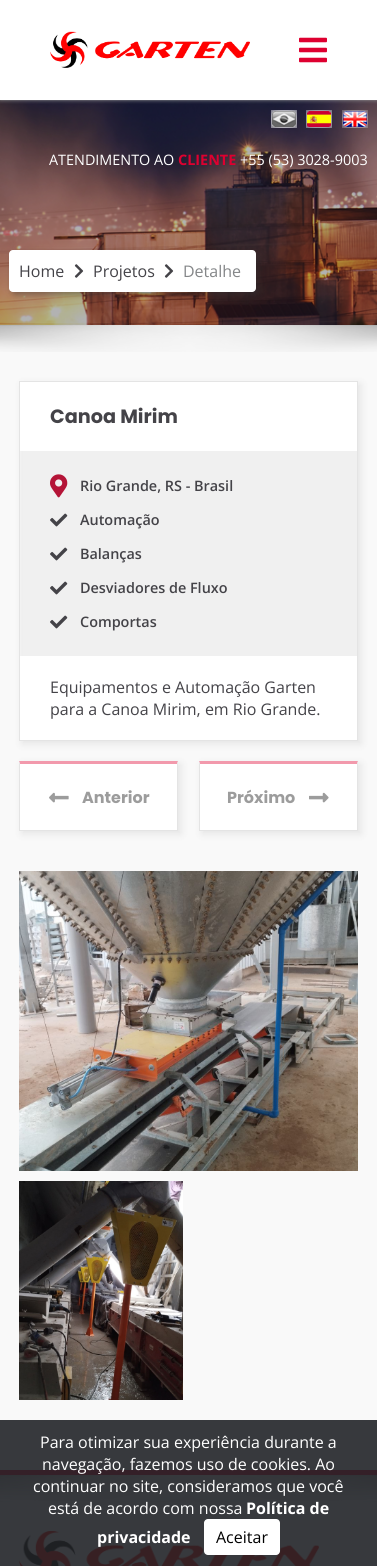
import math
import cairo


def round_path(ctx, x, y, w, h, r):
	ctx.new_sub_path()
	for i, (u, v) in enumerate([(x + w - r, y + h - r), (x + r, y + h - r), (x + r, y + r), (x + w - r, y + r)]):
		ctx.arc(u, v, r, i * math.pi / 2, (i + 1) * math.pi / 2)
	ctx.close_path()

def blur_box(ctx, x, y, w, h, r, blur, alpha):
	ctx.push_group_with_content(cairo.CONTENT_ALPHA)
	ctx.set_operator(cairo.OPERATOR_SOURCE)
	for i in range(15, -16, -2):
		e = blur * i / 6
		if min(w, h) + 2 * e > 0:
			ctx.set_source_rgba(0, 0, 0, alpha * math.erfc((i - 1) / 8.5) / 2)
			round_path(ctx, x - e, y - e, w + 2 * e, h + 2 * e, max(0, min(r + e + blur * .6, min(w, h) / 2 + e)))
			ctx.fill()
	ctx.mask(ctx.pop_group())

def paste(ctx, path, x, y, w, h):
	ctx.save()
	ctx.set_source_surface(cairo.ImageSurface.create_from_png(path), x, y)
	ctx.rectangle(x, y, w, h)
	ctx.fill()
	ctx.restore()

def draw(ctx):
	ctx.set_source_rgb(0.216, 0.224, 0.239)
	ctx.paint()
	ctx.set_source_rgb(1, 1, 1)
	ctx.rectangle(0, 0, 377, 100)
	ctx.fill()
	paste(ctx, 'media/3.png', 0, 100, 377, 225)
	ctx.save()
	ctx.rectangle(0, 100, 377, 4)
	ctx.clip()
	ctx.set_source_rgb(0.612, 0.612, 0.612)
	blur_box(ctx, 0, 0, 377, 100, 0, 2, 1)
	ctx.restore()
	paste(ctx, 'media/1.png', 50, 31, 200, 37)
	paste(ctx, 'media/2.png', 299, 37, 28, 26)
	paste(ctx, 'media/4.png', 271, 110, 26, 18)
	paste(ctx, 'media/5.png', 306, 110, 26, 18)
	paste(ctx, 'media/6.png', 342, 110, 26, 18)
	ctx.select_font_face('Open Sans')
	ctx.set_font_size(14.4)
	ctx.move_to(49, 165)
	ctx.show_text('ATENDIMENTO AO')
	ctx.select_font_face('Open Sans', cairo.FONT_SLANT_NORMAL, cairo.FONT_WEIGHT_BOLD)
	ctx.set_source_rgb(0.871, 0, 0.188)
	ctx.move_to(178, 165)
	ctx.show_text('CLIENTE')
	ctx.select_font_face('Open Sans')
	ctx.set_source_rgb(1, 1, 1)
	ctx.move_to(240, 165)
	ctx.show_text('+55 (53) 3028-9003')
	ctx.set_source_rgb(0.2, 0.2, 0.2)
	blur_box(ctx, 12, 253, 247, 42, 4, 3, 0.4)
	ctx.set_source_rgb(1, 1, 1)
	round_path(ctx, 9, 250, 247, 42, 4)
	ctx.fill()
	ctx.set_font_size(16)
	ctx.set_source_rgb(0.267, 0.263, 0.282)
	ctx.move_to(19, 277)
	ctx.show_text('Home')
	paste(ctx, 'media/7.png', 74, 264, 10, 14)
	ctx.move_to(93, 277)
	ctx.show_text('Projetos')
	paste(ctx, 'media/7.png', 164, 264, 10, 14)
	ctx.set_source_rgb(0.518, 0.525, 0.533)
	ctx.move_to(183, 277)
	ctx.show_text('Detalhe')
	ctx.set_source_rgb(0.976, 0.976, 0.976)
	ctx.rectangle(0, 325, 377, 1095)
	ctx.fill()
	paste(ctx, 'media/8.png', 0, 325, 377, 27)
	ctx.set_source_rgb(0.2, 0.2, 0.2)
	blur_box(ctx, 22, 384, 339, 360, 0, 4, 0.1)
	ctx.rectangle(19.5, 381.5, 338, 359)
	ctx.set_source_rgb(0.894, 0.894, 0.894)
	ctx.set_line_width(1)
	ctx.stroke()
	ctx.set_source_rgb(1, 1, 1)
	ctx.rectangle(20, 382, 337, 69)
	ctx.fill()
	ctx.select_font_face('Poppins', cairo.FONT_SLANT_NORMAL, cairo.FONT_WEIGHT_BOLD)
	ctx.set_font_size(19.25)
	ctx.set_source_rgb(0.267, 0.263, 0.282)
	ctx.move_to(50, 423)
	ctx.show_text('Canoa Mirim')
	ctx.set_source_rgb(0.941, 0.941, 0.941)
	ctx.rectangle(23, 451, 334, 205)
	ctx.fill()
	paste(ctx, 'media/9.png', 50, 474, 18, 24)
	ctx.select_font_face('Open Sans SemiBold')
	ctx.set_font_size(14.4)
	ctx.set_source_rgb(0.267, 0.263, 0.282)
	ctx.move_to(80, 491)
	ctx.show_text('Rio Grande, RS - Brasil')
	paste(ctx, 'media/10.png', 50, 513, 18, 14)
	ctx.move_to(80, 525)
	ctx.show_text('Automação')
	paste(ctx, 'media/10.png', 50, 547, 18, 14)
	ctx.move_to(80, 559)
	ctx.show_text('Balanças')
	paste(ctx, 'media/10.png', 50, 581, 18, 14)
	ctx.move_to(80, 593)
	ctx.show_text('Desviadores de Fluxo')
	paste(ctx, 'media/10.png', 50, 615, 18, 14)
	ctx.move_to(80, 627)
	ctx.show_text('Comportas')
	ctx.set_source_rgb(1, 1, 1)
	ctx.rectangle(20, 656, 337, 84)
	ctx.fill()
	ctx.select_font_face('Open Sans')
	ctx.set_font_size(16)
	ctx.set_source_rgb(0.267, 0.263, 0.282)
	ctx.move_to(50, 693)
	ctx.show_text('Equipamentos e Automação Garten')
	ctx.move_to(50, 715)
	ctx.show_text('para a Canoa Mirim, em Rio Grande.')
	ctx.set_source_rgb(0.2, 0.2, 0.2)
	blur_box(ctx, 22, 764, 159, 70, 0, 4, 0.1)
	ctx.set_source_rgb(1, 1, 1)
	ctx.rectangle(19, 761, 159, 69)
	ctx.fill()
	ctx.set_source_rgb(0.949, 0.6, 0.675)
	ctx.new_path()
	ctx.move_to(19, 761)
	ctx.line_to(178, 761)
	ctx.line_to(177, 764)
	ctx.line_to(20, 764)
	ctx.close_path()
	ctx.fill()
	ctx.set_source_rgb(0.894, 0.894, 0.894)
	ctx.new_path()
	ctx.move_to(178, 761)
	ctx.line_to(178, 831)
	ctx.line_to(177, 830)
	ctx.line_to(177, 764)
	ctx.close_path()
	ctx.fill()
	ctx.rectangle(19, 830, 159, 1)
	ctx.fill()
	ctx.new_path()
	ctx.move_to(19, 831)
	ctx.line_to(19, 761)
	ctx.line_to(20, 764)
	ctx.line_to(20, 830)
	ctx.close_path()
	ctx.fill()
	paste(ctx, 'media/11.png', 49, 792, 20, 11)
	ctx.select_font_face('Poppins', cairo.FONT_SLANT_NORMAL, cairo.FONT_WEIGHT_BOLD)
	ctx.set_source_rgb(0.612, 0.612, 0.612)
	ctx.move_to(82, 803)
	ctx.show_text('Anterior')
	ctx.set_source_rgb(0.2, 0.2, 0.2)
	blur_box(ctx, 202, 764, 159, 70, 0, 4, 0.1)
	ctx.set_source_rgb(1, 1, 1)
	ctx.rectangle(199, 761, 159, 69)
	ctx.fill()
	ctx.set_source_rgb(0.949, 0.6, 0.675)
	ctx.new_path()
	ctx.move_to(199, 761)
	ctx.line_to(358, 761)
	ctx.line_to(357, 764)
	ctx.line_to(200, 764)
	ctx.close_path()
	ctx.fill()
	ctx.set_source_rgb(0.894, 0.894, 0.894)
	ctx.new_path()
	ctx.move_to(358, 761)
	ctx.line_to(358, 831)
	ctx.line_to(357, 830)
	ctx.line_to(357, 764)
	ctx.close_path()
	ctx.fill()
	ctx.rectangle(199, 830, 159, 1)
	ctx.fill()
	ctx.new_path()
	ctx.move_to(199, 831)
	ctx.line_to(199, 761)
	ctx.line_to(200, 764)
	ctx.line_to(200, 830)
	ctx.close_path()
	ctx.fill()
	ctx.set_source_rgb(0.612, 0.612, 0.612)
	ctx.move_to(227, 803)
	ctx.show_text('Próximo')
	paste(ctx, 'media/12.png', 309, 792, 20, 11)
	paste(ctx, 'media/13.png', 19, 871, 339, 300)
	paste(ctx, 'media/14.png', 19, 1181, 164, 219)
	ctx.select_font_face('Open Sans')
	ctx.set_source_rgb(1, 1, 1)
	ctx.move_to(40, 1448)
	ctx.show_text('Para otimizar sua experiência durante a')
	ctx.set_source_rgb(0.204, 0.125, 0.157)
	ctx.rectangle(0, 1470, 377, 5)
	ctx.fill()
	ctx.set_source_rgb(1, 1, 1)
	ctx.move_to(42, 1470)
	ctx.show_text('navegação, fazemos uso de cookies. Ao')
	paste(ctx, 'media/15.png', 0, 1475, 377, 27)
	ctx.move_to(33, 1492)
	ctx.show_text('continuar no site, consideramos que você')
	ctx.move_to(48, 1514)
	ctx.show_text('está de acordo com nossa')
	ctx.select_font_face('Open Sans', cairo.FONT_SLANT_NORMAL, cairo.FONT_WEIGHT_BOLD)
	ctx.move_to(246, 1514)
	ctx.show_text('Política de')
	paste(ctx, 'media/16.png', 19, 1531, 300, 35)
	ctx.move_to(97, 1543)
	ctx.show_text('privacidade')
	round_path(ctx, 204, 1519, 76, 36, 4)
	ctx.fill()
	ctx.select_font_face('Open Sans')
	ctx.set_source_rgb(0, 0, 0)
	ctx.move_to(216, 1543)
	ctx.show_text('Aceitar')


surface = cairo.ImageSurface(cairo.FORMAT_RGB24, 377, 1566)
ctx = cairo.Context(surface)
options = cairo.FontOptions()
options.set_hint_metrics(cairo.HINT_METRICS_OFF)
options.set_hint_style(cairo.HINT_STYLE_NONE)
ctx.set_font_options(options)
ctx.set_miter_limit(4)
draw(ctx)
surface.write_to_png('image.png')
